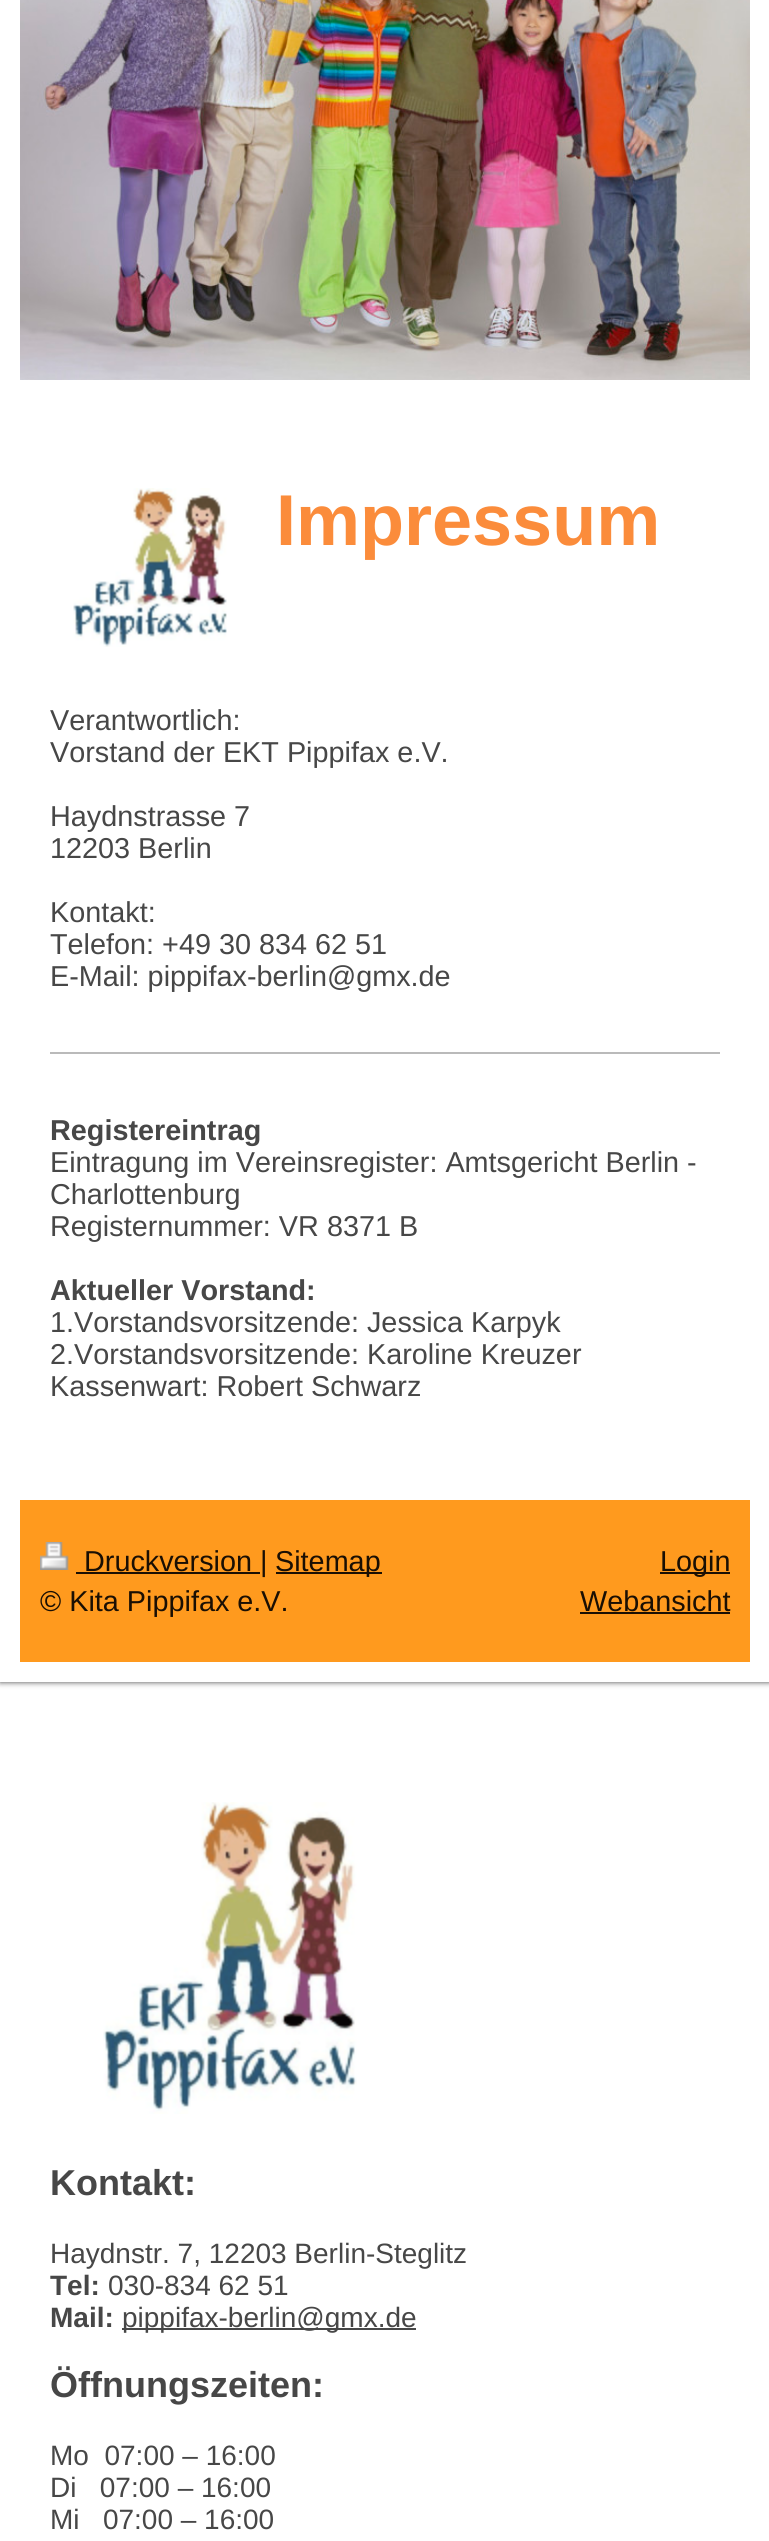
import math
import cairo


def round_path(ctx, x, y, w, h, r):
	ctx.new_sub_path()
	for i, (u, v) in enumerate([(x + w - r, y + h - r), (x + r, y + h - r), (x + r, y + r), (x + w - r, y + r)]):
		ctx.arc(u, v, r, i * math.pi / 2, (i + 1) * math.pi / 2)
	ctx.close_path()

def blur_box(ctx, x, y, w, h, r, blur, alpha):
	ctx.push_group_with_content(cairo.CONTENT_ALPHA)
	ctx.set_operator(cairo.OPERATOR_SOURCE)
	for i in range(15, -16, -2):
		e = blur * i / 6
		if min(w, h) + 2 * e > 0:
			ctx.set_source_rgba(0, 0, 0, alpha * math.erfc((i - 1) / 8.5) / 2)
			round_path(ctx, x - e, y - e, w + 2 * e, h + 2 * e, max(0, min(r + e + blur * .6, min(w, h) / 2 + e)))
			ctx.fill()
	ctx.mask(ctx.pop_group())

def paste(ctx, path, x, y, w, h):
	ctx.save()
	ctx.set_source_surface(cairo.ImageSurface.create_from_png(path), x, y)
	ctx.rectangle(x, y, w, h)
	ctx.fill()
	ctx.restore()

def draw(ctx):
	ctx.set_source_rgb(1, 1, 1)
	ctx.paint()
	paste(ctx, 'media/1.png', 0, 1682, 769, 30)
	ctx.set_source_rgb(0.278, 0.278, 0.278)
	blur_box(ctx, 0, -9, 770, 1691, 0, 3, 1)
	ctx.set_source_rgb(1, 1, 1)
	ctx.rectangle(0, 400, 769, 1100)
	ctx.fill()
	ctx.rectangle(10, -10, 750, 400)
	ctx.set_line_width(20)
	ctx.stroke()
	paste(ctx, 'media/2.png', 20, 0, 730, 380)
	paste(ctx, 'media/3.png', 73, 488, 154, 159)
	ctx.select_font_face('Liberation Sans', cairo.FONT_SLANT_NORMAL, cairo.FONT_WEIGHT_BOLD)
	ctx.set_font_size(72)
	ctx.set_source_rgb(0.984, 0.549, 0.231)
	ctx.move_to(276, 545)
	ctx.show_text('Impressum')
	ctx.select_font_face('Liberation Sans')
	ctx.set_font_size(28.8)
	ctx.set_source_rgb(0.278, 0.278, 0.278)
	for x, y, s in [
		(50, 730, 'Verantwortlich:'),
		(50, 762, 'Vorstand der EKT Pippifax e.V.'),
		(50, 826, 'Haydnstrasse 7'),
		(50, 858, '12203 Berlin'),
		(50, 922, 'Kontakt:'),
		(50, 954, 'Telefon: +49 30 834 62 51'),
		(50, 986, 'E-Mail: pippifax-berlin@gmx.de'),
	]:
		ctx.move_to(x, y)
		ctx.show_text(s)
	ctx.set_source_rgb(0.729, 0.729, 0.729)
	ctx.rectangle(50, 1052, 670, 2)
	ctx.fill()
	ctx.select_font_face('Liberation Sans', cairo.FONT_SLANT_NORMAL, cairo.FONT_WEIGHT_BOLD)
	ctx.set_source_rgb(0.278, 0.278, 0.278)
	ctx.move_to(50, 1140)
	ctx.show_text('Registereintrag')
	ctx.select_font_face('Liberation Sans')
	for x, y, s in [
		(50, 1172, 'Eintragung im Vereinsregister: Amtsgericht Berlin -'),
		(50, 1204, 'Charlottenburg'),
		(50, 1236, 'Registernummer: VR 8371 B'),
	]:
		ctx.move_to(x, y)
		ctx.show_text(s)
	ctx.select_font_face('Liberation Sans', cairo.FONT_SLANT_NORMAL, cairo.FONT_WEIGHT_BOLD)
	ctx.move_to(50, 1300)
	ctx.show_text('Aktueller Vorstand:')
	ctx.select_font_face('Liberation Sans')
	for x, y, s in [
		(50, 1332, '1.Vorstandsvorsitzende: Jessica Karpyk'),
		(50, 1364, '2.Vorstandsvorsitzende: Karoline Kreuzer'),
		(50, 1396, 'Kassenwart: Robert Schwarz'),
	]:
		ctx.move_to(x, y)
		ctx.show_text(s)
	ctx.set_source_rgb(1, 0.604, 0.118)
	ctx.rectangle(20, 1500, 730, 162)
	ctx.fill()
	ctx.set_source_rgb(1, 1, 1)
	ctx.rectangle(750, 1500, 19, 162)
	ctx.rectangle(20, 1662, 749, 20)
	ctx.rectangle(0, 1500, 20, 182)
	ctx.fill()
	paste(ctx, 'media/4.png', 40, 1542, 29, 28)
	ctx.set_source_rgb(0.102, 0.059, 0.012)
	ctx.rectangle(76, 1572, 184, 2)
	ctx.fill()
	ctx.move_to(84, 1571)
	ctx.show_text('Druckversion |')
	ctx.rectangle(276, 1572, 106, 2)
	ctx.fill()
	ctx.move_to(275, 1571)
	ctx.show_text('Sitemap')
	ctx.move_to(40, 1611)
	ctx.show_text('© Kita Pippifax e.V.')
	ctx.rectangle(660, 1572, 70, 2)
	ctx.fill()
	ctx.move_to(660, 1571)
	ctx.show_text('Login')
	ctx.move_to(580, 1611)
	ctx.show_text('Webansicht')
	ctx.rectangle(580, 1612, 150, 2)
	ctx.fill()
	paste(ctx, 'media/5.png', 103, 1802, 254, 312)
	ctx.select_font_face('Liberation Sans', cairo.FONT_SLANT_NORMAL, cairo.FONT_WEIGHT_BOLD)
	ctx.set_font_size(36)
	ctx.set_source_rgb(0.278, 0.278, 0.278)
	ctx.move_to(50, 2195)
	ctx.show_text('Kontakt:')
	ctx.select_font_face('Liberation Sans')
	ctx.set_font_size(28)
	ctx.move_to(50, 2263)
	ctx.show_text('Haydnstr. 7, 12203 Berlin-Steglitz')
	ctx.select_font_face('Liberation Sans', cairo.FONT_SLANT_NORMAL, cairo.FONT_WEIGHT_BOLD)
	ctx.move_to(50, 2295)
	ctx.show_text('Tel:')
	ctx.select_font_face('Liberation Sans')
	ctx.move_to(108, 2295)
	ctx.show_text('030-834 62 51')
	ctx.select_font_face('Liberation Sans', cairo.FONT_SLANT_NORMAL, cairo.FONT_WEIGHT_BOLD)
	ctx.move_to(50, 2327)
	ctx.show_text('Mail:')
	ctx.rectangle(122, 2328, 294, 2)
	ctx.fill()
	ctx.select_font_face('Liberation Sans')
	ctx.move_to(122, 2327)
	ctx.show_text('pippifax-berlin@gmx.de')
	ctx.select_font_face('Liberation Sans', cairo.FONT_SLANT_NORMAL, cairo.FONT_WEIGHT_BOLD)
	ctx.set_font_size(36)
	ctx.move_to(50, 2397)
	ctx.show_text('Öffnungszeiten:')
	ctx.select_font_face('Liberation Sans')
	ctx.set_font_size(28)
	for x, y, s in [
		(50, 2465, 'Mo  07:00 – 16:00'),
		(50, 2497, 'Di   07:00 – 16:00'),
		(50, 2529, 'Mi   07:00 – 16:00'),
	]:
		ctx.move_to(x, y)
		ctx.show_text(s)


surface = cairo.ImageSurface(cairo.FORMAT_RGB24, 769, 2541)
ctx = cairo.Context(surface)
options = cairo.FontOptions()
options.set_hint_metrics(cairo.HINT_METRICS_OFF)
options.set_hint_style(cairo.HINT_STYLE_NONE)
ctx.set_font_options(options)
ctx.set_miter_limit(4)
draw(ctx)
surface.write_to_png('image.png')
